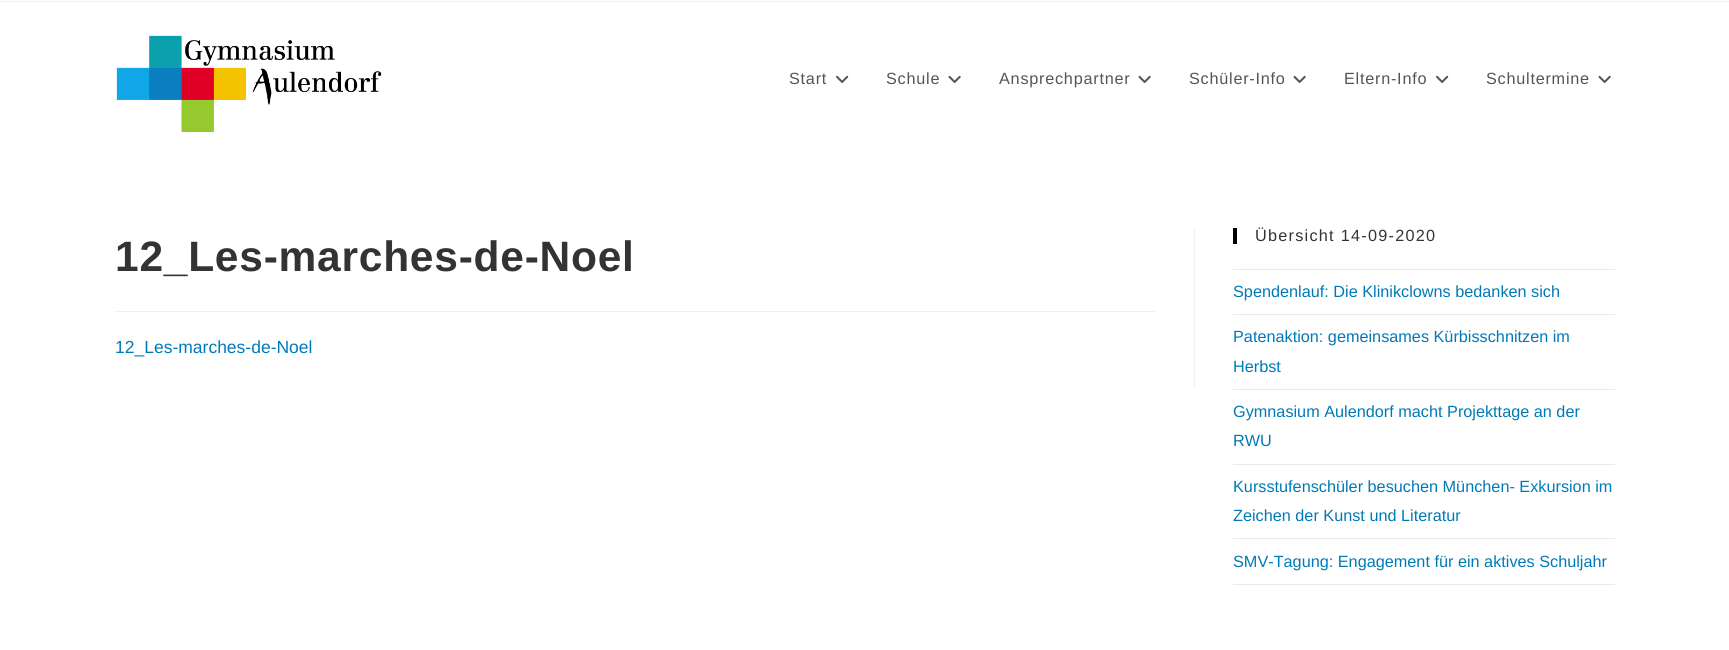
import math
import cairo


def write_spaced(ctx, x, y, s, letter, word):
	ctx.move_to(x, y)
	for ch in s:
		ctx.show_text(ch)
		ctx.rel_move_to(letter + word * (ch == ' '), 0)

def paste(ctx, path, x, y, w, h):
	ctx.save()
	ctx.set_source_surface(cairo.ImageSurface.create_from_png(path), x, y)
	ctx.rectangle(x, y, w, h)
	ctx.fill()
	ctx.restore()

def draw(ctx):
	ctx.set_source_rgb(1, 1, 1)
	ctx.paint()
	ctx.set_source_rgb(0.945, 0.945, 0.945)
	ctx.rectangle(0, 1, 1729, 1)
	ctx.fill()
	paste(ctx, 'media/1.png', 116, 35, 266, 97)
	ctx.select_font_face('Liberation Sans')
	ctx.set_font_size(16.25)
	ctx.set_source_rgb(0.333, 0.333, 0.333)
	write_spaced(ctx, 789, 84, 'Start', 0.75, 0)
	paste(ctx, 'media/2.png', 836, 75, 13, 8)
	write_spaced(ctx, 886, 84, 'Schule', 0.75, 0)
	paste(ctx, 'media/3.png', 948, 75, 13, 8)
	write_spaced(ctx, 999, 84, 'Ansprechpartner', 0.75, 0)
	paste(ctx, 'media/3.png', 1138, 75, 13, 8)
	write_spaced(ctx, 1189, 84, 'Schüler-Info', 0.75, 0)
	paste(ctx, 'media/3.png', 1293, 75, 13, 8)
	write_spaced(ctx, 1344, 84, 'Eltern-Info', 0.75, 0)
	paste(ctx, 'media/2.png', 1436, 75, 13, 8)
	write_spaced(ctx, 1486, 84, 'Schultermine', 0.75, 0)
	paste(ctx, 'media/3.png', 1598, 75, 13, 8)
	ctx.set_source_rgb(0.945, 0.945, 0.945)
	ctx.rectangle(1194, 228, 1, 160)
	ctx.fill()
	ctx.rectangle(115, 311, 1041, 1)
	ctx.fill()
	ctx.select_font_face('Liberation Sans', cairo.FONT_SLANT_NORMAL, cairo.FONT_WEIGHT_BOLD)
	ctx.set_font_size(42.5)
	ctx.set_source_rgb(0.2, 0.2, 0.2)
	write_spaced(ctx, 115, 271, '12_Les-marches-de-Noel', 0.75, 0)
	ctx.select_font_face('Liberation Sans')
	ctx.set_font_size(17.5)
	ctx.set_source_rgb(0, 0.478, 0.718)
	ctx.move_to(115, 353)
	ctx.show_text('12_Les-marches-de-Noel')
	ctx.set_source_rgb(0, 0, 0)
	ctx.rectangle(1233, 228, 4, 16)
	ctx.fill()
	ctx.set_font_size(16.25)
	ctx.set_source_rgb(0.2, 0.2, 0.2)
	write_spaced(ctx, 1255, 241, 'Übersicht 14-09-2020', 1.25, 0)
	ctx.set_source_rgb(0.914, 0.914, 0.914)
	ctx.rectangle(1233, 269, 382, 1)
	ctx.fill()
	ctx.rectangle(1233, 314, 382, 1)
	ctx.fill()
	ctx.set_source_rgb(0, 0.478, 0.718)
	ctx.move_to(1233, 297)
	ctx.show_text('Spendenlauf: Die Klinikclowns bedanken sich')
	ctx.set_source_rgb(0.914, 0.914, 0.914)
	ctx.rectangle(1233, 389, 382, 1)
	ctx.fill()
	ctx.set_source_rgb(0, 0.478, 0.718)
	ctx.move_to(1233, 342)
	ctx.show_text('Patenaktion: gemeinsames Kürbisschnitzen im')
	ctx.move_to(1233, 372)
	ctx.show_text('Herbst')
	ctx.set_source_rgb(0.914, 0.914, 0.914)
	ctx.rectangle(1233, 464, 382, 1)
	ctx.fill()
	ctx.set_source_rgb(0, 0.478, 0.718)
	ctx.move_to(1233, 417)
	ctx.show_text('Gymnasium Aulendorf macht Projekttage an der')
	ctx.move_to(1233, 446)
	ctx.show_text('RWU')
	ctx.set_source_rgb(0.914, 0.914, 0.914)
	ctx.rectangle(1233, 538, 382, 1)
	ctx.fill()
	ctx.set_source_rgb(0, 0.478, 0.718)
	ctx.move_to(1233, 492)
	ctx.show_text('Kursstufenschüler besuchen München- Exkursion im')
	ctx.move_to(1233, 521)
	ctx.show_text('Zeichen der Kunst und Literatur')
	ctx.set_source_rgb(0.914, 0.914, 0.914)
	ctx.rectangle(1233, 584, 382, 1)
	ctx.fill()
	ctx.set_source_rgb(0, 0.478, 0.718)
	ctx.move_to(1233, 567)
	ctx.show_text('SMV-Tagung: Engagement für ein aktives Schuljahr')


surface = cairo.ImageSurface(cairo.FORMAT_RGB24, 1729, 650)
ctx = cairo.Context(surface)
options = cairo.FontOptions()
options.set_hint_metrics(cairo.HINT_METRICS_OFF)
options.set_hint_style(cairo.HINT_STYLE_NONE)
ctx.set_font_options(options)
ctx.set_miter_limit(4)
draw(ctx)
surface.write_to_png('image.png')
